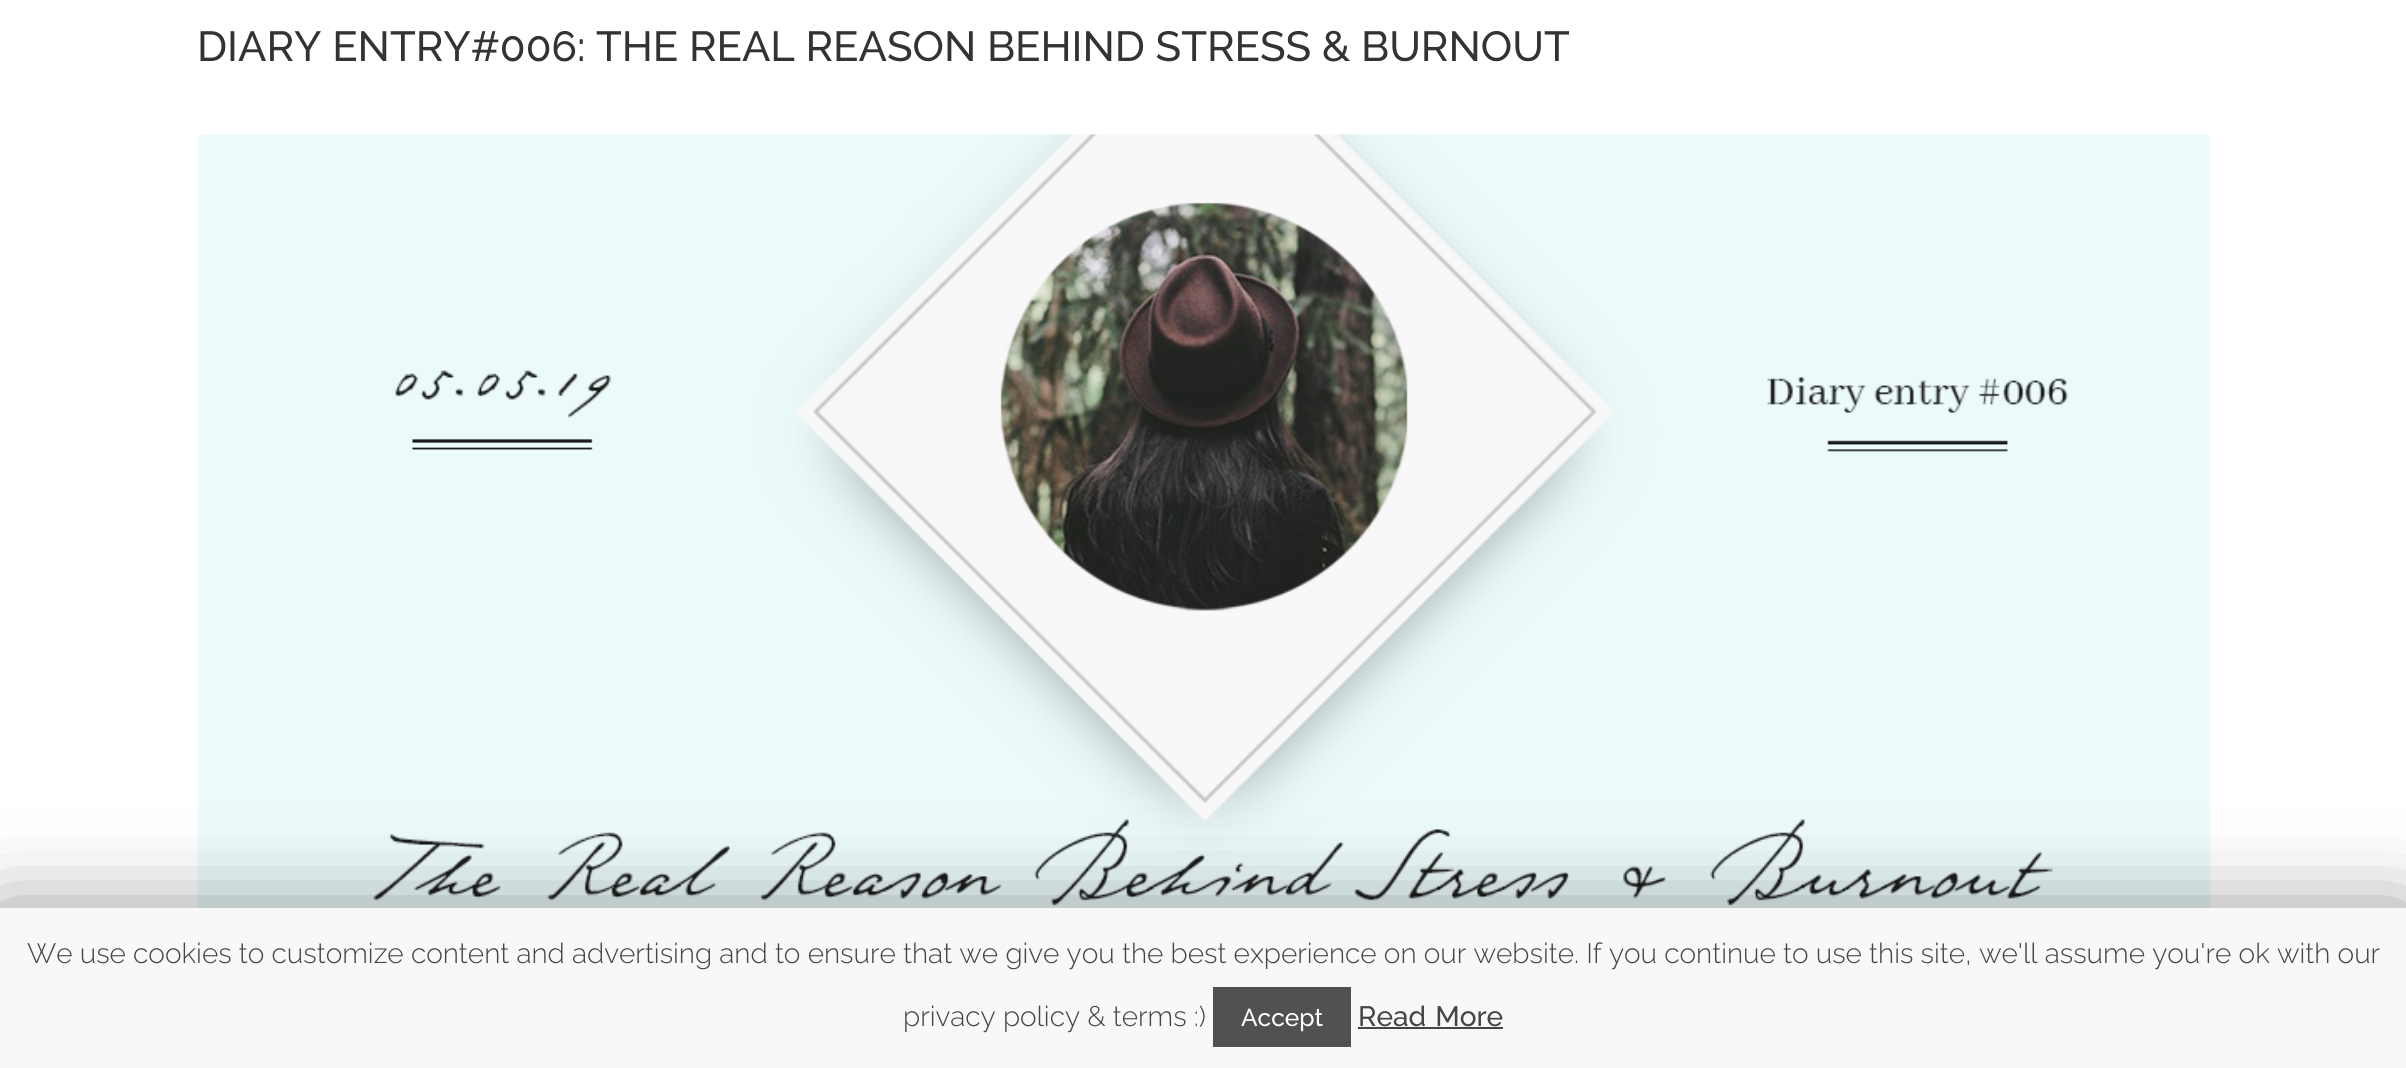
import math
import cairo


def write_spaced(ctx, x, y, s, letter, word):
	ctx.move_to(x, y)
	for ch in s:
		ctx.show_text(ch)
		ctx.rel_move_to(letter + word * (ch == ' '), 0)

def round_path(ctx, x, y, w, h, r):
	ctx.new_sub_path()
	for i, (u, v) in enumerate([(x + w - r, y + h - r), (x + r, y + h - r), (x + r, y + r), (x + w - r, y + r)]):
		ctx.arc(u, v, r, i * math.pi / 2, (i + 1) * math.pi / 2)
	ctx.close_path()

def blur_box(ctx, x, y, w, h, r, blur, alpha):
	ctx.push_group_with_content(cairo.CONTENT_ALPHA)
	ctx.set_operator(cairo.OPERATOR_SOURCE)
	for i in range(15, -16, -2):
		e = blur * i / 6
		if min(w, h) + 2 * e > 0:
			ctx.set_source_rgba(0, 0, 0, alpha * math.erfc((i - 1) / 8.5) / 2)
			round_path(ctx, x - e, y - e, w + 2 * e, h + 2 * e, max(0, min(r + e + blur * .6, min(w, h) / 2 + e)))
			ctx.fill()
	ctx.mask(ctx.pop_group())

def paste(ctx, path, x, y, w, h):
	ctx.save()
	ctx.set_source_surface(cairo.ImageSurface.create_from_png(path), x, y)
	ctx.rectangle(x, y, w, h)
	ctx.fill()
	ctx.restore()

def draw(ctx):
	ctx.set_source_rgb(1, 1, 1)
	ctx.paint()
	ctx.select_font_face('Raleway Medium')
	ctx.set_font_size(42)
	ctx.set_source_rgb(0.2, 0.2, 0.2)
	ctx.move_to(197, 61)
	ctx.show_text('DIARY ENTRY#006: THE REAL REASON BEHIND STRESS & BURNOUT')
	paste(ctx, 'media/1.png', 197, 134, 2014, 774)
	ctx.set_source_rgb(0, 0, 0)
	blur_box(ctx, 0, 917, 2406, 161, 0, 44, 0.5)
	ctx.set_source_rgb(0.969, 0.969, 0.969)
	ctx.rectangle(0, 908, 2406, 160)
	ctx.fill()
	ctx.select_font_face('Raleway Light')
	ctx.set_font_size(28)
	ctx.set_source_rgb(0.267, 0.267, 0.267)
	ctx.move_to(27, 963)
	ctx.show_text('We use cookies to customize content and advertising and to ensure that we give you the best experience on our website. If you continue to use this site, we\'ll assume you\'re ok with our')
	ctx.move_to(903, 1026)
	ctx.show_text('privacy policy & terms :)')
	ctx.set_source_rgb(0.318, 0.318, 0.318)
	ctx.rectangle(1213, 987, 138, 60)
	ctx.fill()
	ctx.select_font_face('Raleway Medium')
	ctx.set_font_size(24.5)
	ctx.set_source_rgb(1, 1, 1)
	ctx.move_to(1241, 1026)
	ctx.show_text('Accept')
	ctx.set_font_size(28)
	ctx.set_source_rgb(0.267, 0.267, 0.267)
	write_spaced(ctx, 1358, 1026, 'Read More', 0, 2)
	ctx.rectangle(1358, 1027, 145, 2)
	ctx.fill()


surface = cairo.ImageSurface(cairo.FORMAT_RGB24, 2406, 1068)
ctx = cairo.Context(surface)
options = cairo.FontOptions()
options.set_hint_metrics(cairo.HINT_METRICS_OFF)
options.set_hint_style(cairo.HINT_STYLE_NONE)
ctx.set_font_options(options)
ctx.set_miter_limit(4)
draw(ctx)
surface.write_to_png('image.png')
